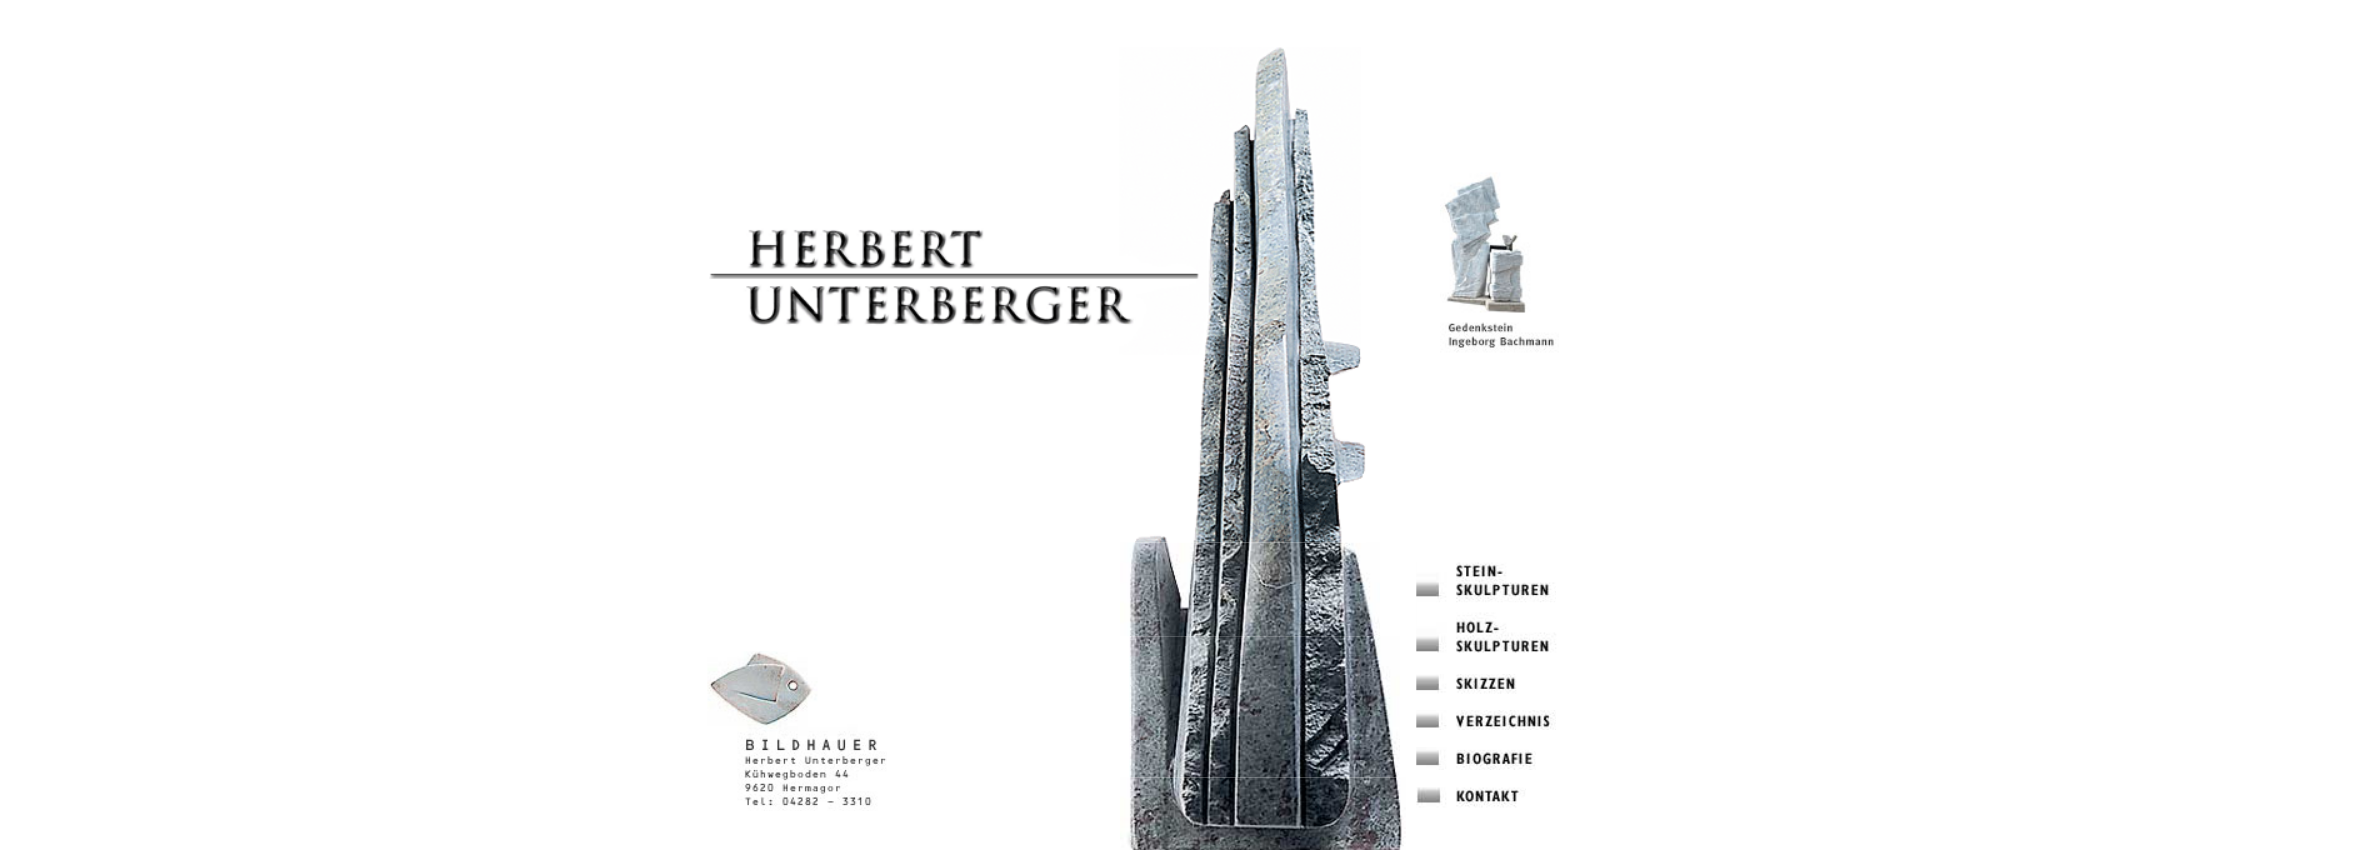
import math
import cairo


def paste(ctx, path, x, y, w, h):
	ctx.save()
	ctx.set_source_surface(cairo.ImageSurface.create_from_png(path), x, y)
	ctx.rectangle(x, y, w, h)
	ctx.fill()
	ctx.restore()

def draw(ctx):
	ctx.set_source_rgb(1, 1, 1)
	ctx.paint()
	paste(ctx, 'media/1.png', 709, 47, 652, 308)
	paste(ctx, 'media/2.png', 1440, 172, 119, 181)
	paste(ctx, 'media/5.png', 1120, 542, 260, 95)
	paste(ctx, 'media/3.png', 1135, 355, 231, 188)
	paste(ctx, 'media/4.png', 707, 651, 180, 160)
	paste(ctx, 'media/6.png', 1416, 562, 140, 41)
	paste(ctx, 'media/7.png', 1416, 602, 141, 51)
	paste(ctx, 'media/8.png', 1129, 636, 271, 104)
	paste(ctx, 'media/9.png', 1416, 674, 101, 20)
	paste(ctx, 'media/10.png', 1416, 710, 140, 20)
	paste(ctx, 'media/11.png', 1129, 740, 271, 38)
	paste(ctx, 'media/12.png', 1416, 747, 120, 23)
	paste(ctx, 'media/13.png', 1120, 777, 286, 73)
	paste(ctx, 'media/14.png', 1416, 787, 110, 21)


surface = cairo.ImageSurface(cairo.FORMAT_RGB24, 2368, 850)
ctx = cairo.Context(surface)
options = cairo.FontOptions()
options.set_hint_metrics(cairo.HINT_METRICS_OFF)
options.set_hint_style(cairo.HINT_STYLE_NONE)
ctx.set_font_options(options)
ctx.set_miter_limit(4)
draw(ctx)
surface.write_to_png('image.png')
